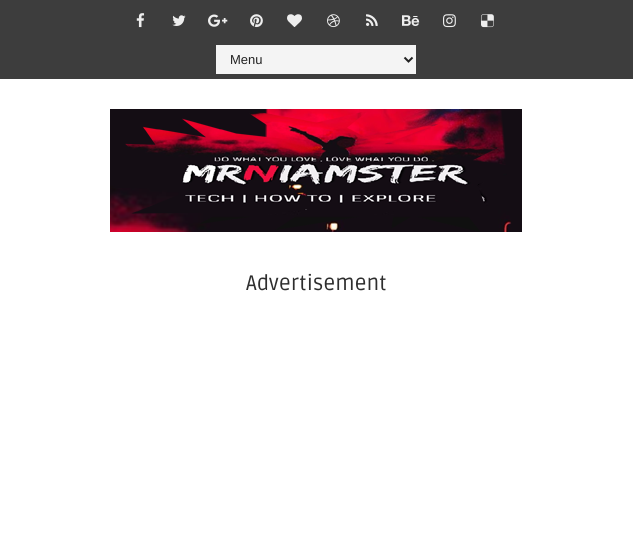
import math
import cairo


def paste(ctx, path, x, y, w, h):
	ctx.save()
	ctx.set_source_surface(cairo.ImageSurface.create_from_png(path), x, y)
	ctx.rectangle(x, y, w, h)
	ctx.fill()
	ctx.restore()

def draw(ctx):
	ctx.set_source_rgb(1, 1, 1)
	ctx.paint()
	ctx.set_source_rgb(0.239, 0.239, 0.239)
	ctx.rectangle(0, 0, 633, 79)
	ctx.fill()
	paste(ctx, 'media/1.png', 136, 13, 9, 15)
	paste(ctx, 'media/2.png', 172, 15, 14, 11)
	paste(ctx, 'media/3.png', 208, 14, 20, 13)
	paste(ctx, 'media/4.png', 250, 14, 13, 14)
	paste(ctx, 'media/5.png', 287, 14, 15, 13)
	paste(ctx, 'media/6.png', 327, 14, 13, 14)
	paste(ctx, 'media/7.png', 366, 14, 12, 12)
	paste(ctx, 'media/8.png', 402, 15, 18, 11)
	paste(ctx, 'media/9.png', 443, 14, 13, 14)
	paste(ctx, 'media/10.png', 481, 14, 13, 14)
	ctx.set_source_rgb(0.957, 0.957, 0.957)
	ctx.rectangle(216, 45, 200, 29)
	ctx.fill()
	ctx.new_path()
	ctx.move_to(404.5, 57.5)
	ctx.line_to(408.5, 61.5)
	ctx.line_to(412.5, 57.5)
	ctx.set_source_rgb(0.133, 0.133, 0.133)
	ctx.stroke()
	ctx.select_font_face('Liberation Sans')
	ctx.set_font_size(13)
	ctx.move_to(230, 64)
	ctx.show_text('Menu')
	paste(ctx, 'media/11.png', 110, 109, 412, 123)
	ctx.select_font_face('Ruda')
	ctx.set_font_size(21)
	ctx.set_source_rgb(0.18, 0.18, 0.18)
	ctx.move_to(246, 290)
	ctx.show_text('Advertisement')


surface = cairo.ImageSurface(cairo.FORMAT_RGB24, 633, 550)
ctx = cairo.Context(surface)
options = cairo.FontOptions()
options.set_hint_metrics(cairo.HINT_METRICS_OFF)
options.set_hint_style(cairo.HINT_STYLE_NONE)
ctx.set_font_options(options)
ctx.set_miter_limit(4)
draw(ctx)
surface.write_to_png('image.png')
